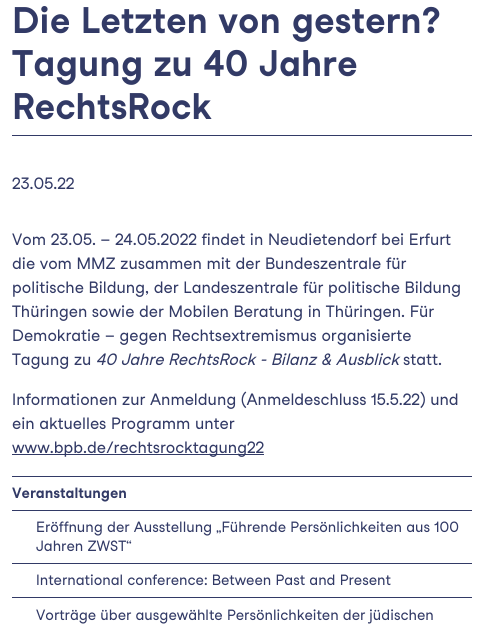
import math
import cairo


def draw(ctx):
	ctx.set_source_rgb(1, 1, 1)
	ctx.paint()
	ctx.set_source_rgb(0.196, 0.227, 0.4)
	ctx.rectangle(12, 135, 460, 1)
	ctx.fill()
	ctx.select_font_face('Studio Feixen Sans', cairo.FONT_SLANT_NORMAL, cairo.FONT_WEIGHT_BOLD)
	ctx.set_font_size(36)
	for x, y, s in [
		(12, 33, 'Die Letzten von gestern?'),
		(12, 76, 'Tagung zu 40 Jahre'),
		(12, 119, 'RechtsRock'),
	]:
		ctx.move_to(x, y)
		ctx.show_text(s)
	ctx.select_font_face('Studio Feixen Sans')
	ctx.set_font_size(16)
	for x, y, s in [
		(12, 189, '23.05.22'),
		(12, 245, 'Vom 23.05. – 24.05.2022 findet in Neudietendorf bei Erfurt'),
		(12, 269, 'die vom MMZ zusammen mit der Bundeszentrale für'),
		(12, 293, 'politische Bildung, der Landeszentrale für politische Bildung'),
		(12, 317, 'Thüringen sowie der Mobilen Beratung in Thüringen. Für'),
		(12, 341, 'Demokratie – gegen Rechtsextremismus organisierte'),
		(12, 365, 'Tagung zu'),
	]:
		ctx.move_to(x, y)
		ctx.show_text(s)
	ctx.select_font_face('Studio Feixen Sans', cairo.FONT_SLANT_ITALIC)
	ctx.move_to(96, 365)
	ctx.show_text('40 Jahre RechtsRock - Bilanz & Ausblick')
	ctx.select_font_face('Studio Feixen Sans')
	for x, y, s in [
		(403, 365, 'statt.'),
		(12, 405, 'Informationen zur Anmeldung (Anmeldeschluss 15.5.22) und'),
		(12, 429, 'ein aktuelles Programm unter'),
	]:
		ctx.move_to(x, y)
		ctx.show_text(s)
	ctx.rectangle(12, 454, 252, 1)
	ctx.fill()
	ctx.move_to(12, 453)
	ctx.show_text('www.bpb.de/rechtsrocktagung22')
	ctx.rectangle(12, 476, 460, 1)
	ctx.fill()
	ctx.rectangle(12, 510, 460, 1)
	ctx.fill()
	ctx.select_font_face('Studio Feixen Sans', cairo.FONT_SLANT_NORMAL, cairo.FONT_WEIGHT_BOLD)
	ctx.set_font_size(14.5)
	ctx.move_to(12, 498)
	ctx.show_text('Veranstaltungen')
	ctx.rectangle(12, 563, 460, 1)
	ctx.fill()
	ctx.select_font_face('Studio Feixen Sans')
	ctx.move_to(36, 532)
	ctx.show_text('Eröffnung der Ausstellung „Führende Persönlichkeiten aus 100')
	ctx.move_to(36, 551)
	ctx.show_text('Jahren ZWST“')
	ctx.rectangle(12, 597, 460, 1)
	ctx.fill()
	ctx.move_to(36, 585)
	ctx.show_text('International conference: Between Past and Present')
	ctx.move_to(36, 620)
	ctx.show_text('Vorträge über ausgewählte Persönlichkeiten der jüdischen')


surface = cairo.ImageSurface(cairo.FORMAT_RGB24, 484, 630)
ctx = cairo.Context(surface)
options = cairo.FontOptions()
options.set_hint_metrics(cairo.HINT_METRICS_OFF)
options.set_hint_style(cairo.HINT_STYLE_NONE)
ctx.set_font_options(options)
ctx.set_miter_limit(4)
draw(ctx)
surface.write_to_png('image.png')
